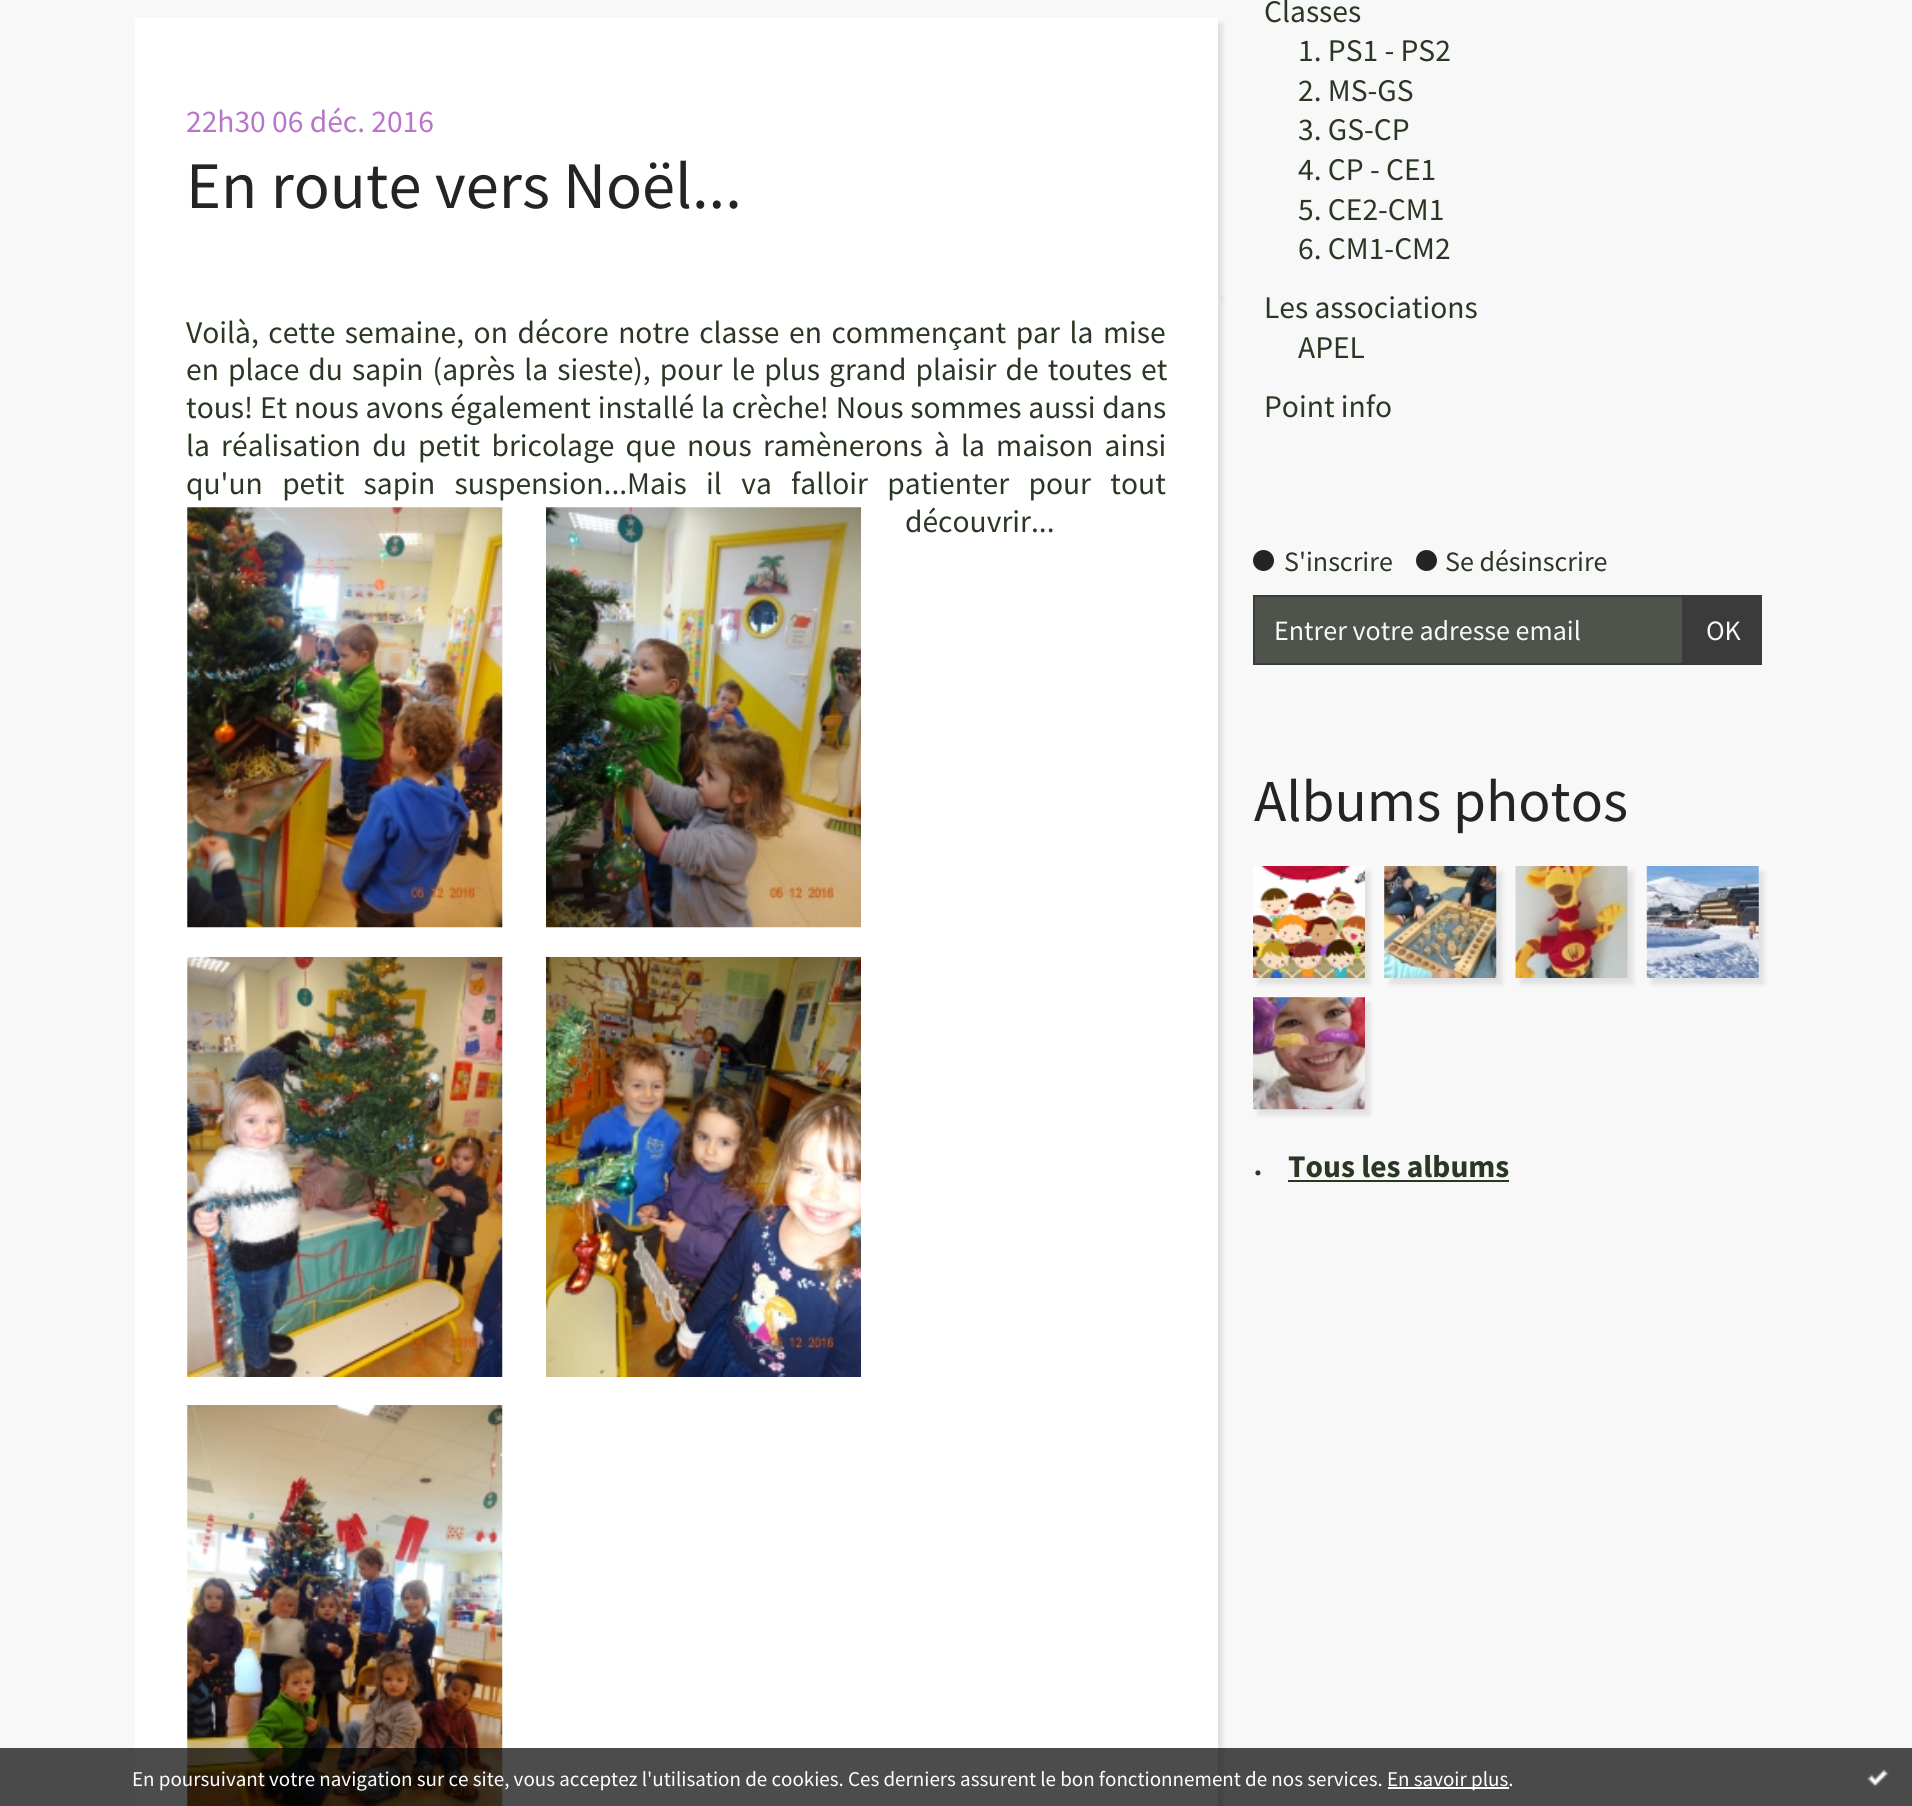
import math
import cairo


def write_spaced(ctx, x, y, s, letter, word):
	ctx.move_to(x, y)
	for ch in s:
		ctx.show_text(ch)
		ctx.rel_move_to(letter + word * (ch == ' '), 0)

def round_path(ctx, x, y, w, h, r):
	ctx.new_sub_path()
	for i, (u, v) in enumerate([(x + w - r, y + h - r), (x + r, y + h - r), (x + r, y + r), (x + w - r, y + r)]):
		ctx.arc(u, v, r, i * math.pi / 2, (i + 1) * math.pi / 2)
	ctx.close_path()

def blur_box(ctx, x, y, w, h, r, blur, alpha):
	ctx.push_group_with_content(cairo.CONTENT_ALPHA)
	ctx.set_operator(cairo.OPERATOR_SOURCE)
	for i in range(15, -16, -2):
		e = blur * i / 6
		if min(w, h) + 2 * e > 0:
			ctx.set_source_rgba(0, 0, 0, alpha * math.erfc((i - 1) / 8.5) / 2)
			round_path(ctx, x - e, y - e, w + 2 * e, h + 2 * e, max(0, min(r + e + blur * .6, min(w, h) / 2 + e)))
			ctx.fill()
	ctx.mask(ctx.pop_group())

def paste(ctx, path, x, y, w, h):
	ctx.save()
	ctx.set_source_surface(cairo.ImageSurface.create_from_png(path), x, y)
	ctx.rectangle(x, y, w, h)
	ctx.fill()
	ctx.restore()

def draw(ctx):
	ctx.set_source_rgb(0.969, 0.969, 0.969)
	ctx.paint()
	ctx.set_source_rgb(0, 0, 0)
	blur_box(ctx, 140, 23, 1083, 276, 0, 2.5, 0.1)
	ctx.set_source_rgb(1, 1, 1)
	ctx.rectangle(135, 18, 1083, 276)
	ctx.fill()
	ctx.select_font_face('Source Sans Pro')
	ctx.set_font_size(31.5)
	ctx.set_source_rgb(0.722, 0.463, 0.792)
	ctx.move_to(186, 132)
	ctx.show_text('22h30 06 déc. 2016')
	ctx.set_font_size(66.5)
	ctx.set_source_rgb(0.137, 0.145, 0.133)
	ctx.move_to(186, 208)
	ctx.show_text('En route vers Noël...')
	ctx.set_source_rgb(0, 0, 0)
	blur_box(ctx, 140, 299, 1083, 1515, 0, 2.5, 0.1)
	ctx.set_source_rgb(1, 1, 1)
	ctx.rectangle(135, 294, 1083, 1512)
	ctx.fill()
	ctx.set_font_size(31.5)
	ctx.set_source_rgb(0.169, 0.216, 0.145)
	write_spaced(ctx, 186, 343, 'Voilà, cette semaine, on décore notre classe en commençant par la mise', 0, 3.25)
	write_spaced(ctx, 186, 380, 'en place du sapin (après la sieste), pour le plus grand plaisir de toutes et', 0, 2.75)
	write_spaced(ctx, 186, 418, 'tous! Et nous avons également installé la crèche! Nous sommes aussi dans', 0, 0.5)
	write_spaced(ctx, 186, 456, 'la réalisation du petit bricolage que nous ramènerons à la maison ainsi', 0, 4.9)
	write_spaced(ctx, 186, 494, 'qu\'un petit sapin suspension...Mais il va falloir patienter pour tout', 0, 13)
	paste(ctx, 'media/1.png', 187, 507, 316, 421)
	paste(ctx, 'media/2.png', 546, 507, 315, 421)
	ctx.move_to(905, 532)
	ctx.show_text('découvrir...')
	paste(ctx, 'media/3.png', 187, 957, 316, 420)
	paste(ctx, 'media/4.png', 546, 957, 315, 420)
	paste(ctx, 'media/5.png', 187, 1405, 316, 401)
	for x, y, s in [
		(1264, 22, 'Classes'),
		(1298, 61, '1. PS1 - PS2'),
		(1298, 101, '2. MS-GS'),
		(1298, 140, '3. GS-CP'),
		(1298, 180, '4. CP - CE1'),
		(1298, 220, '5. CE2-CM1'),
		(1298, 259, '6. CM1-CM2'),
		(1264, 318, 'Les associations'),
		(1298, 358, 'APEL'),
		(1264, 417, 'Point info'),
	]:
		ctx.move_to(x, y)
		ctx.show_text(s)
	ctx.set_source_rgb(0.137, 0.145, 0.133)
	ctx.new_path()
	ctx.arc(1263.5, 560.5, 10.5, 0, 2 * math.pi)
	ctx.fill()
	ctx.set_font_size(28)
	ctx.set_source_rgb(0.169, 0.216, 0.145)
	ctx.move_to(1284, 571)
	ctx.show_text('S\'inscrire')
	ctx.set_source_rgb(0.137, 0.145, 0.133)
	ctx.new_path()
	ctx.arc(1426.5, 560.5, 10.5, 0, 2 * math.pi)
	ctx.fill()
	ctx.set_source_rgb(0.169, 0.216, 0.145)
	ctx.move_to(1445, 571)
	ctx.show_text('Se désinscrire')
	ctx.set_source_rgb(0.306, 0.325, 0.294)
	ctx.rectangle(1254, 596, 429, 68)
	ctx.fill_preserve()
	ctx.set_source_rgb(0.231, 0.231, 0.231)
	ctx.stroke()
	ctx.set_source_rgb(0.969, 0.969, 0.969)
	ctx.move_to(1274, 640)
	ctx.show_text('Entrer votre adresse email')
	ctx.set_source_rgb(0.231, 0.231, 0.231)
	ctx.rectangle(1684, 595, 78, 70)
	ctx.fill()
	ctx.set_source_rgb(0.969, 0.969, 0.969)
	ctx.move_to(1706, 640)
	ctx.show_text('OK')
	ctx.set_font_size(59.5)
	ctx.set_source_rgb(0.137, 0.145, 0.133)
	ctx.move_to(1254, 821)
	ctx.show_text('Albums photos')
	ctx.set_source_rgb(0, 0, 0)
	blur_box(ctx, 1258, 872, 112, 112, 0, 2.5, 0.1)
	paste(ctx, 'media/6.png', 1253, 866, 112, 112)
	blur_box(ctx, 1390, 872, 112, 112, 0, 2.5, 0.1)
	paste(ctx, 'media/7.png', 1384, 866, 113, 112)
	blur_box(ctx, 1521, 872, 112, 112, 0, 2.5, 0.1)
	paste(ctx, 'media/8.png', 1515, 866, 113, 112)
	blur_box(ctx, 1652, 872, 112, 112, 0, 2.5, 0.1)
	paste(ctx, 'media/9.png', 1646, 866, 113, 112)
	blur_box(ctx, 1258, 1003, 112, 112, 0, 2.5, 0.1)
	paste(ctx, 'media/10.png', 1253, 997, 112, 113)
	ctx.select_font_face('Liberation Serif', cairo.FONT_SLANT_NORMAL, cairo.FONT_WEIGHT_BOLD)
	ctx.set_font_size(31.5)
	ctx.set_source_rgb(0.169, 0.216, 0.145)
	ctx.move_to(1254, 1175)
	ctx.show_text('.')
	ctx.select_font_face('Source Sans Pro', cairo.FONT_SLANT_NORMAL, cairo.FONT_WEIGHT_BOLD)
	ctx.move_to(1288, 1177)
	ctx.show_text('Tous les albums')
	ctx.rectangle(1288, 1180, 221, 2)
	ctx.fill()
	ctx.set_source_rgba(0, 0, 0, 0.7)
	ctx.rectangle(0, 1748, 1912, 58)
	ctx.fill()
	ctx.select_font_face('Source Sans Pro')
	ctx.set_font_size(21)
	ctx.set_source_rgb(1, 1, 1)
	ctx.move_to(132, 1786)
	ctx.show_text('En poursuivant votre navigation sur ce site, vous acceptez l\'utilisation de cookies. Ces derniers assurent le bon fonctionnement de nos services.')
	ctx.rectangle(1388, 1787, 121, 2)
	ctx.fill()
	ctx.move_to(1387, 1786)
	ctx.show_text('En savoir plus.')
	paste(ctx, 'media/11.png', 1867, 1769, 22, 18)


surface = cairo.ImageSurface(cairo.FORMAT_RGB24, 1912, 1806)
ctx = cairo.Context(surface)
options = cairo.FontOptions()
options.set_hint_metrics(cairo.HINT_METRICS_OFF)
options.set_hint_style(cairo.HINT_STYLE_NONE)
ctx.set_font_options(options)
ctx.set_miter_limit(4)
draw(ctx)
surface.write_to_png('image.png')
